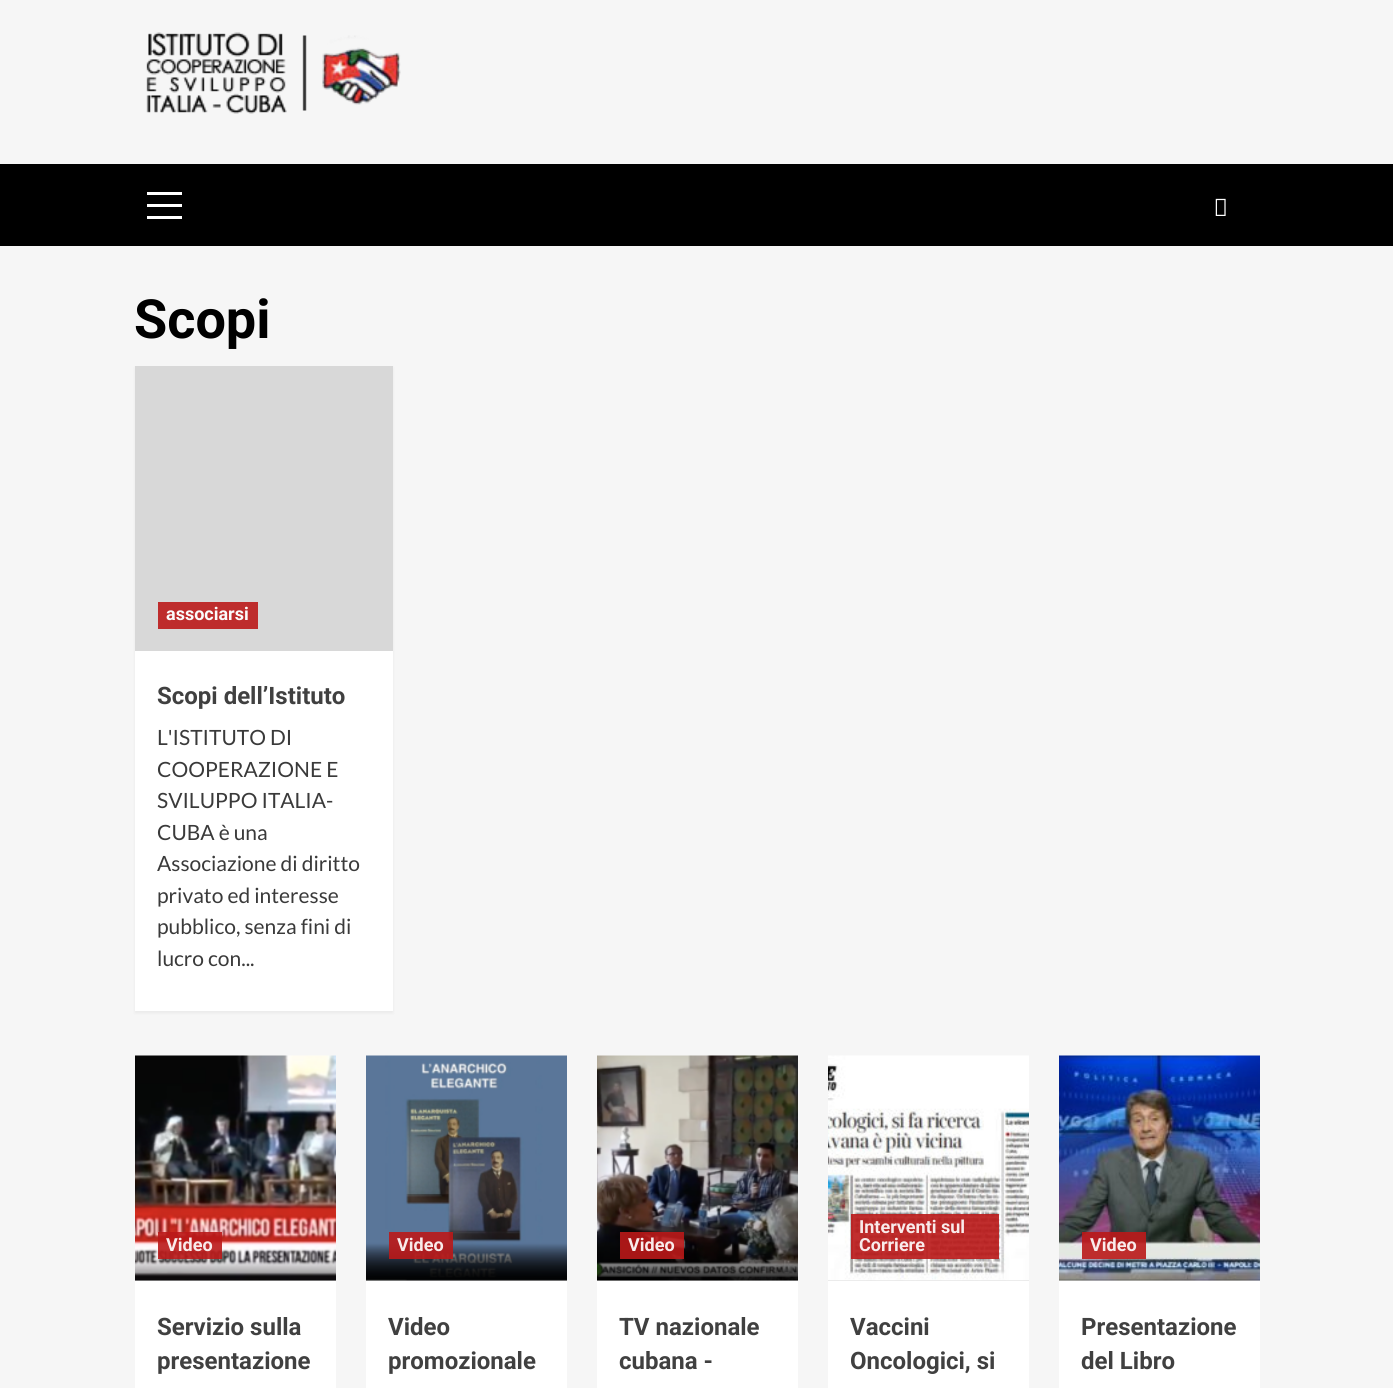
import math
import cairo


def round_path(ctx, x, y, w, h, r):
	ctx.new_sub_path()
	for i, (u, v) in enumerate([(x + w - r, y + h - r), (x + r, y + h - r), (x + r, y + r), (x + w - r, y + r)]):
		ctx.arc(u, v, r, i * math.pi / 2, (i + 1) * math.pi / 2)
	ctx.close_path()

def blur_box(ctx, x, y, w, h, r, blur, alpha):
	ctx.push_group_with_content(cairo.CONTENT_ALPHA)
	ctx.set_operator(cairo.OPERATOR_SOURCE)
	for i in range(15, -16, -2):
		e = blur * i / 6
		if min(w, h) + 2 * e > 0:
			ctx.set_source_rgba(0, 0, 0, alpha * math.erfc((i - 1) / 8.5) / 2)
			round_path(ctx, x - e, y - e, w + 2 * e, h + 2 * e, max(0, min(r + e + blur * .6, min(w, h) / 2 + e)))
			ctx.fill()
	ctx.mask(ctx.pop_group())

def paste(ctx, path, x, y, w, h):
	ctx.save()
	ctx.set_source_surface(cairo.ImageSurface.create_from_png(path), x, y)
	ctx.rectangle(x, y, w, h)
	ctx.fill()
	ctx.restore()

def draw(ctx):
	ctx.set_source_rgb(0.961, 0.961, 0.961)
	ctx.paint()
	paste(ctx, 'media/1.png', 146, 32, 255, 82)
	ctx.set_source_rgb(0, 0, 0)
	ctx.rectangle(0, 164, 1393, 82)
	ctx.fill()
	ctx.set_source_rgb(1, 1, 1)
	ctx.rectangle(147, 204, 35, 3)
	ctx.rectangle(147, 192, 35, 3)
	ctx.rectangle(147, 216, 35, 3)
	ctx.fill()
	paste(ctx, 'media/2.png', 1215, 198, 11, 18)
	ctx.select_font_face('Roboto', cairo.FONT_SLANT_NORMAL, cairo.FONT_WEIGHT_BOLD)
	ctx.set_font_size(54)
	ctx.set_source_rgb(0, 0, 0)
	ctx.move_to(134, 338)
	ctx.show_text('Scopi')
	ctx.set_source_rgb(0, 0, 0)
	blur_box(ctx, 135, 368, 258, 645, 0, 1.5, 0.05)
	ctx.set_source_rgb(1, 1, 1)
	ctx.rectangle(135, 651, 258, 360)
	ctx.fill()
	ctx.set_source_rgb(0.847, 0.847, 0.847)
	ctx.rectangle(135, 366, 258, 285)
	ctx.fill()
	ctx.set_source_rgb(0.745, 0.173, 0.173)
	ctx.rectangle(158, 602, 100, 27)
	ctx.fill()
	ctx.set_font_size(18)
	ctx.set_source_rgb(0.984, 0.984, 0.984)
	ctx.move_to(166, 620)
	ctx.show_text('associarsi')
	ctx.set_font_size(24)
	ctx.set_source_rgb(0.251, 0.251, 0.251)
	ctx.move_to(157, 704)
	ctx.show_text('Scopi dell’Istituto')
	ctx.select_font_face('Lato')
	ctx.set_font_size(21)
	ctx.set_source_rgb(0.227, 0.227, 0.227)
	for x, y, s in [
		(157, 745, 'L\'ISTITUTO DI'),
		(157, 777, 'COOPERAZIONE E'),
		(157, 808, 'SVILUPPO ITALIA-'),
		(157, 840, 'CUBA è una'),
		(157, 871, 'Associazione di diritto'),
		(157, 903, 'privato ed interesse'),
		(157, 934, 'pubblico, senza fini di'),
		(157, 966, 'lucro con...'),
	]:
		ctx.move_to(x, y)
		ctx.show_text(s)
	ctx.set_source_rgb(1, 1, 1)
	ctx.rectangle(135, 1281, 201, 107)
	ctx.fill()
	ctx.set_source_rgb(0.847, 0.847, 0.847)
	ctx.rectangle(135, 1280, 201, 1)
	ctx.fill()
	paste(ctx, 'media/3.png', 135, 1055, 201, 226)
	ctx.set_source_rgba(0.733, 0.098, 0.098, 0.9)
	ctx.rectangle(158, 1232, 64, 27)
	ctx.fill()
	ctx.select_font_face('Roboto', cairo.FONT_SLANT_NORMAL, cairo.FONT_WEIGHT_BOLD)
	ctx.set_font_size(18)
	ctx.set_source_rgb(0.976, 0.918, 0.918)
	ctx.move_to(166, 1251)
	ctx.show_text('Video')
	ctx.set_font_size(24)
	ctx.set_source_rgb(0.251, 0.251, 0.251)
	ctx.move_to(157, 1335)
	ctx.show_text('Servizio sulla')
	ctx.move_to(157, 1369)
	ctx.show_text('presentazione')
	ctx.set_source_rgb(1, 1, 1)
	ctx.rectangle(366, 1281, 201, 107)
	ctx.fill()
	ctx.set_source_rgb(0.847, 0.847, 0.847)
	ctx.rectangle(366, 1280, 201, 1)
	ctx.fill()
	paste(ctx, 'media/4.png', 366, 1055, 201, 226)
	ctx.set_source_rgba(0.733, 0.098, 0.098, 0.9)
	ctx.rectangle(389, 1232, 64, 27)
	ctx.fill()
	ctx.set_font_size(18)
	ctx.set_source_rgb(0.976, 0.918, 0.918)
	ctx.move_to(397, 1251)
	ctx.show_text('Video')
	ctx.set_font_size(24)
	ctx.set_source_rgb(0.251, 0.251, 0.251)
	ctx.move_to(388, 1335)
	ctx.show_text('Video')
	ctx.move_to(388, 1369)
	ctx.show_text('promozionale')
	ctx.set_source_rgb(1, 1, 1)
	ctx.rectangle(597, 1281, 201, 107)
	ctx.fill()
	ctx.set_source_rgb(0.847, 0.847, 0.847)
	ctx.rectangle(597, 1280, 201, 1)
	ctx.fill()
	paste(ctx, 'media/5.png', 597, 1055, 201, 226)
	ctx.set_source_rgba(0.733, 0.098, 0.098, 0.9)
	ctx.rectangle(620, 1232, 64, 27)
	ctx.fill()
	ctx.set_font_size(18)
	ctx.set_source_rgb(0.976, 0.918, 0.918)
	ctx.move_to(628, 1251)
	ctx.show_text('Video')
	ctx.set_font_size(24)
	ctx.set_source_rgb(0.251, 0.251, 0.251)
	ctx.move_to(619, 1335)
	ctx.show_text('TV nazionale')
	ctx.move_to(619, 1369)
	ctx.show_text('cubana -')
	ctx.set_source_rgb(1, 1, 1)
	ctx.rectangle(828, 1281, 201, 107)
	ctx.fill()
	ctx.set_source_rgb(0.847, 0.847, 0.847)
	ctx.rectangle(828, 1280, 201, 1)
	ctx.fill()
	paste(ctx, 'media/6.png', 828, 1055, 201, 226)
	ctx.set_source_rgba(0.733, 0.098, 0.098, 0.9)
	ctx.rectangle(851, 1214, 148, 45)
	ctx.fill()
	ctx.set_font_size(18)
	ctx.set_source_rgb(0.976, 0.918, 0.918)
	ctx.move_to(859, 1233)
	ctx.show_text('Interventi sul')
	ctx.move_to(859, 1251)
	ctx.show_text('Corriere')
	ctx.set_font_size(24)
	ctx.set_source_rgb(0.251, 0.251, 0.251)
	ctx.move_to(850, 1335)
	ctx.show_text('Vaccini')
	ctx.move_to(850, 1369)
	ctx.show_text('Oncologici, si')
	ctx.set_source_rgb(1, 1, 1)
	ctx.rectangle(1059, 1281, 201, 107)
	ctx.fill()
	ctx.set_source_rgb(0.847, 0.847, 0.847)
	ctx.rectangle(1059, 1280, 201, 1)
	ctx.fill()
	paste(ctx, 'media/7.png', 1059, 1055, 201, 226)
	ctx.set_source_rgba(0.733, 0.098, 0.098, 0.9)
	ctx.rectangle(1082, 1232, 64, 27)
	ctx.fill()
	ctx.set_font_size(18)
	ctx.set_source_rgb(0.976, 0.918, 0.918)
	ctx.move_to(1090, 1251)
	ctx.show_text('Video')
	ctx.set_font_size(24)
	ctx.set_source_rgb(0.251, 0.251, 0.251)
	ctx.move_to(1081, 1335)
	ctx.show_text('Presentazione')
	ctx.move_to(1081, 1369)
	ctx.show_text('del Libro')


surface = cairo.ImageSurface(cairo.FORMAT_RGB24, 1393, 1388)
ctx = cairo.Context(surface)
options = cairo.FontOptions()
options.set_hint_metrics(cairo.HINT_METRICS_OFF)
options.set_hint_style(cairo.HINT_STYLE_NONE)
ctx.set_font_options(options)
ctx.set_miter_limit(4)
draw(ctx)
surface.write_to_png('image.png')
